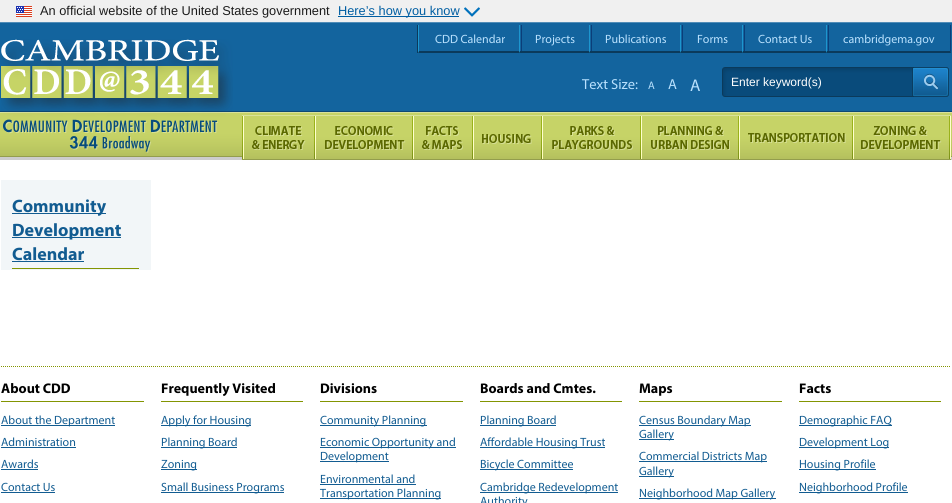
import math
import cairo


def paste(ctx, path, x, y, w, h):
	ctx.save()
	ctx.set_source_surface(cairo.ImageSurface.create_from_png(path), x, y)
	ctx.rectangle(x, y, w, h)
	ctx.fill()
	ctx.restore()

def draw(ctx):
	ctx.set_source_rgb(1, 1, 1)
	ctx.paint()
	ctx.set_source_rgb(0.941, 0.941, 0.941)
	ctx.rectangle(0, 0, 952, 22)
	ctx.fill()
	paste(ctx, 'media/1.png', 16, 6, 16, 11)
	ctx.select_font_face('Liberation Sans')
	ctx.set_font_size(12.8)
	ctx.set_source_rgb(0.106, 0.106, 0.106)
	ctx.move_to(40, 15)
	ctx.show_text('An official website of the United States government')
	ctx.set_source_rgb(0, 0.369, 0.635)
	ctx.rectangle(338, 16, 121, 1)
	ctx.fill()
	ctx.move_to(338, 15)
	ctx.show_text('Here’s how you know')
	paste(ctx, 'media/2.png', 464, 7, 16, 10)
	paste(ctx, 'media/3.png', 0, 22, 952, 138)
	paste(ctx, 'media/4.png', 1, 39, 232, 114)
	ctx.set_source_rgb(0.043, 0.227, 0.357)
	ctx.rectangle(417, 25, 1, 28)
	ctx.fill()
	ctx.set_source_rgb(0.043, 0.243, 0.475)
	ctx.new_path()
	ctx.move_to(522, 25)
	ctx.line_to(522, 53)
	ctx.line_to(521, 51)
	ctx.line_to(521, 25)
	ctx.close_path()
	ctx.fill()
	ctx.set_source_rgb(0.043, 0.227, 0.357)
	ctx.new_path()
	ctx.move_to(522, 53)
	ctx.line_to(418, 53)
	ctx.line_to(419, 51)
	ctx.line_to(521, 51)
	ctx.close_path()
	ctx.fill()
	ctx.set_source_rgb(0.114, 0.588, 0.812)
	ctx.new_path()
	ctx.move_to(418, 53)
	ctx.line_to(418, 25)
	ctx.line_to(419, 25)
	ctx.line_to(419, 51)
	ctx.close_path()
	ctx.fill()
	ctx.select_font_face('Myriad')
	ctx.set_font_size(12)
	ctx.set_source_rgb(0.725, 0.882, 0.996)
	ctx.move_to(435, 43)
	ctx.show_text('CDD Calendar')
	ctx.set_source_rgb(0.043, 0.243, 0.475)
	ctx.new_path()
	ctx.move_to(592, 25)
	ctx.line_to(592, 53)
	ctx.line_to(591, 51)
	ctx.line_to(591, 25)
	ctx.close_path()
	ctx.fill()
	ctx.set_source_rgb(0.043, 0.227, 0.357)
	ctx.new_path()
	ctx.move_to(592, 53)
	ctx.line_to(519, 53)
	ctx.line_to(520, 51)
	ctx.line_to(591, 51)
	ctx.close_path()
	ctx.fill()
	ctx.set_source_rgb(0.114, 0.588, 0.812)
	ctx.new_path()
	ctx.move_to(519, 53)
	ctx.line_to(519, 25)
	ctx.line_to(520, 25)
	ctx.line_to(520, 51)
	ctx.close_path()
	ctx.fill()
	ctx.set_source_rgb(0.725, 0.882, 0.996)
	ctx.move_to(535, 43)
	ctx.show_text('Projects')
	ctx.set_source_rgb(0.043, 0.243, 0.475)
	ctx.new_path()
	ctx.move_to(683, 25)
	ctx.line_to(683, 53)
	ctx.line_to(682, 51)
	ctx.line_to(682, 25)
	ctx.close_path()
	ctx.fill()
	ctx.set_source_rgb(0.043, 0.227, 0.357)
	ctx.new_path()
	ctx.move_to(683, 53)
	ctx.line_to(589, 53)
	ctx.line_to(590, 51)
	ctx.line_to(682, 51)
	ctx.close_path()
	ctx.fill()
	ctx.set_source_rgb(0.114, 0.588, 0.812)
	ctx.new_path()
	ctx.move_to(589, 53)
	ctx.line_to(589, 25)
	ctx.line_to(590, 25)
	ctx.line_to(590, 51)
	ctx.close_path()
	ctx.fill()
	ctx.set_source_rgb(0.725, 0.882, 0.996)
	ctx.move_to(605, 43)
	ctx.show_text('Publications')
	ctx.set_source_rgb(0.043, 0.243, 0.475)
	ctx.new_path()
	ctx.move_to(745, 25)
	ctx.line_to(745, 53)
	ctx.line_to(744, 51)
	ctx.line_to(744, 25)
	ctx.close_path()
	ctx.fill()
	ctx.set_source_rgb(0.043, 0.227, 0.357)
	ctx.new_path()
	ctx.move_to(745, 53)
	ctx.line_to(680, 53)
	ctx.line_to(681, 51)
	ctx.line_to(744, 51)
	ctx.close_path()
	ctx.fill()
	ctx.set_source_rgb(0.114, 0.588, 0.812)
	ctx.new_path()
	ctx.move_to(680, 53)
	ctx.line_to(680, 25)
	ctx.line_to(681, 25)
	ctx.line_to(681, 51)
	ctx.close_path()
	ctx.fill()
	ctx.set_source_rgb(0.725, 0.882, 0.996)
	ctx.move_to(697, 43)
	ctx.show_text('Forms')
	ctx.set_source_rgb(0.043, 0.243, 0.475)
	ctx.new_path()
	ctx.move_to(829, 25)
	ctx.line_to(829, 53)
	ctx.line_to(828, 51)
	ctx.line_to(828, 25)
	ctx.close_path()
	ctx.fill()
	ctx.set_source_rgb(0.043, 0.227, 0.357)
	ctx.new_path()
	ctx.move_to(829, 53)
	ctx.line_to(742, 53)
	ctx.line_to(743, 51)
	ctx.line_to(828, 51)
	ctx.close_path()
	ctx.fill()
	ctx.set_source_rgb(0.114, 0.588, 0.812)
	ctx.new_path()
	ctx.move_to(742, 53)
	ctx.line_to(742, 25)
	ctx.line_to(743, 25)
	ctx.line_to(743, 51)
	ctx.close_path()
	ctx.fill()
	ctx.set_source_rgb(0.725, 0.882, 0.996)
	ctx.move_to(758, 43)
	ctx.show_text('Contact Us')
	ctx.set_source_rgb(0.043, 0.243, 0.475)
	ctx.new_path()
	ctx.move_to(951, 25)
	ctx.line_to(951, 53)
	ctx.line_to(950, 51)
	ctx.line_to(950, 25)
	ctx.close_path()
	ctx.fill()
	ctx.set_source_rgb(0.043, 0.227, 0.357)
	ctx.new_path()
	ctx.move_to(951, 53)
	ctx.line_to(826, 53)
	ctx.line_to(827, 51)
	ctx.line_to(950, 51)
	ctx.close_path()
	ctx.fill()
	ctx.set_source_rgb(0.114, 0.588, 0.812)
	ctx.new_path()
	ctx.move_to(826, 53)
	ctx.line_to(826, 25)
	ctx.line_to(827, 25)
	ctx.line_to(827, 51)
	ctx.close_path()
	ctx.fill()
	ctx.set_source_rgb(0.725, 0.882, 0.996)
	ctx.move_to(843, 43)
	ctx.show_text('cambridgema.gov')
	ctx.set_font_size(14.5)
	ctx.move_to(582, 89)
	ctx.show_text('Text Size:')
	ctx.set_font_size(11)
	ctx.move_to(648, 89)
	ctx.show_text('A')
	ctx.set_font_size(14.5)
	ctx.move_to(668, 89)
	ctx.show_text('A')
	ctx.set_font_size(17)
	ctx.move_to(690, 91)
	ctx.show_text('A')
	paste(ctx, 'media/5.png', 722, 67, 192, 30)
	ctx.select_font_face('Liberation Sans')
	ctx.set_font_size(12)
	ctx.set_source_rgb(1, 1, 1)
	ctx.move_to(731, 86)
	ctx.show_text('Enter keyword(s)')
	paste(ctx, 'media/6.png', 912, 67, 37, 30)
	paste(ctx, 'media/7.png', 242, 115, 73, 45)
	paste(ctx, 'media/8.png', 315, 115, 98, 45)
	paste(ctx, 'media/9.png', 413, 115, 60, 45)
	paste(ctx, 'media/10.png', 473, 115, 69, 45)
	paste(ctx, 'media/11.png', 542, 115, 99, 45)
	paste(ctx, 'media/12.png', 641, 115, 98, 45)
	paste(ctx, 'media/13.png', 739, 115, 114, 45)
	paste(ctx, 'media/14.png', 853, 115, 98, 45)
	ctx.set_source_rgb(0.949, 0.961, 0.969)
	ctx.rectangle(1, 180, 150, 90)
	ctx.fill()
	ctx.set_source_rgb(0.514, 0.584, 0.008)
	ctx.rectangle(12, 268, 127, 1)
	ctx.fill()
	ctx.set_source_rgb(0.071, 0.361, 0.569)
	ctx.rectangle(12, 213, 94, 1)
	ctx.fill()
	ctx.select_font_face('Myriad', cairo.FONT_SLANT_NORMAL, cairo.FONT_WEIGHT_BOLD)
	ctx.set_font_size(18)
	ctx.move_to(12, 212)
	ctx.show_text('Community')
	ctx.rectangle(12, 237, 109, 1)
	ctx.fill()
	ctx.move_to(12, 236)
	ctx.show_text('Development')
	ctx.move_to(12, 260)
	ctx.show_text('Calendar')
	ctx.rectangle(12, 261, 72, 1)
	ctx.fill()
	ctx.new_path()
	ctx.move_to(1, 366.5)
	ctx.line_to(951, 366.5)
	ctx.set_source_rgb(0.514, 0.584, 0.008)
	ctx.set_line_width(1)
	ctx.set_dash([1, 1])
	ctx.stroke()
	ctx.rectangle(1, 401, 143, 1)
	ctx.fill()
	ctx.set_font_size(14)
	ctx.set_source_rgb(0, 0, 0)
	ctx.move_to(1, 393)
	ctx.show_text('About CDD')
	ctx.set_source_rgb(0.071, 0.361, 0.569)
	ctx.rectangle(1, 425, 114, 1)
	ctx.fill()
	ctx.select_font_face('Myriad')
	ctx.set_font_size(12)
	ctx.move_to(1, 424)
	ctx.show_text('About the Department')
	ctx.move_to(1, 446)
	ctx.show_text('Administration')
	ctx.rectangle(1, 447, 75, 1)
	ctx.fill()
	ctx.move_to(1, 468)
	ctx.show_text('Awards')
	ctx.rectangle(1, 469, 37, 1)
	ctx.fill()
	ctx.move_to(1, 491)
	ctx.show_text('Contact Us')
	ctx.rectangle(1, 492, 54, 1)
	ctx.fill()
	ctx.set_source_rgb(0.514, 0.584, 0.008)
	ctx.rectangle(161, 401, 142, 1)
	ctx.fill()
	ctx.select_font_face('Myriad', cairo.FONT_SLANT_NORMAL, cairo.FONT_WEIGHT_BOLD)
	ctx.set_font_size(14)
	ctx.set_source_rgb(0, 0, 0)
	ctx.move_to(161, 393)
	ctx.show_text('Frequently Visited')
	ctx.set_source_rgb(0.071, 0.361, 0.569)
	ctx.rectangle(161, 425, 90, 1)
	ctx.fill()
	ctx.select_font_face('Myriad')
	ctx.set_font_size(12)
	ctx.move_to(161, 424)
	ctx.show_text('Apply for Housing')
	ctx.rectangle(161, 447, 76, 1)
	ctx.fill()
	ctx.move_to(161, 446)
	ctx.show_text('Planning Board')
	ctx.rectangle(161, 469, 36, 1)
	ctx.fill()
	ctx.move_to(161, 468)
	ctx.show_text('Zoning')
	ctx.rectangle(161, 492, 123, 1)
	ctx.fill()
	ctx.move_to(161, 491)
	ctx.show_text('Small Business Programs')
	ctx.set_source_rgb(0.514, 0.584, 0.008)
	ctx.rectangle(320, 401, 143, 1)
	ctx.fill()
	ctx.select_font_face('Myriad', cairo.FONT_SLANT_NORMAL, cairo.FONT_WEIGHT_BOLD)
	ctx.set_font_size(14)
	ctx.set_source_rgb(0, 0, 0)
	ctx.move_to(320, 393)
	ctx.show_text('Divisions')
	ctx.set_source_rgb(0.071, 0.361, 0.569)
	ctx.rectangle(320, 425, 107, 1)
	ctx.fill()
	ctx.select_font_face('Myriad')
	ctx.set_font_size(12)
	ctx.move_to(320, 424)
	ctx.show_text('Community Planning')
	ctx.rectangle(320, 447, 136, 1)
	ctx.fill()
	ctx.move_to(320, 446)
	ctx.show_text('Economic Opportunity and')
	ctx.rectangle(320, 461, 69, 1)
	ctx.fill()
	ctx.move_to(320, 460)
	ctx.show_text('Development')
	ctx.move_to(320, 483)
	ctx.show_text('Environmental and')
	ctx.rectangle(320, 484, 96, 1)
	ctx.fill()
	ctx.rectangle(320, 498, 121, 1)
	ctx.fill()
	ctx.move_to(320, 497)
	ctx.show_text('Transportation Planning')
	ctx.set_source_rgb(0.514, 0.584, 0.008)
	ctx.rectangle(480, 401, 142, 1)
	ctx.fill()
	ctx.select_font_face('Myriad', cairo.FONT_SLANT_NORMAL, cairo.FONT_WEIGHT_BOLD)
	ctx.set_font_size(14)
	ctx.set_source_rgb(0, 0, 0)
	ctx.move_to(480, 393)
	ctx.show_text('Boards and Cmtes.')
	ctx.set_source_rgb(0.071, 0.361, 0.569)
	ctx.rectangle(480, 425, 76, 1)
	ctx.fill()
	ctx.select_font_face('Myriad')
	ctx.set_font_size(12)
	ctx.move_to(480, 424)
	ctx.show_text('Planning Board')
	ctx.rectangle(480, 447, 125, 1)
	ctx.fill()
	ctx.move_to(480, 446)
	ctx.show_text('Affordable Housing Trust')
	ctx.rectangle(480, 469, 93, 1)
	ctx.fill()
	ctx.move_to(480, 468)
	ctx.show_text('Bicycle Committee')
	ctx.rectangle(480, 492, 138, 1)
	ctx.fill()
	ctx.move_to(480, 491)
	ctx.show_text('Cambridge Redevelopment')
	ctx.move_to(480, 505)
	ctx.show_text('Authority')
	ctx.set_source_rgb(0.514, 0.584, 0.008)
	ctx.rectangle(639, 401, 143, 1)
	ctx.fill()
	ctx.select_font_face('Myriad', cairo.FONT_SLANT_NORMAL, cairo.FONT_WEIGHT_BOLD)
	ctx.set_font_size(14)
	ctx.set_source_rgb(0, 0, 0)
	ctx.move_to(639, 393)
	ctx.show_text('Maps')
	ctx.set_source_rgb(0.071, 0.361, 0.569)
	ctx.rectangle(639, 425, 112, 1)
	ctx.fill()
	ctx.select_font_face('Myriad')
	ctx.set_font_size(12)
	ctx.move_to(639, 424)
	ctx.show_text('Census Boundary Map')
	ctx.rectangle(639, 439, 35, 1)
	ctx.fill()
	ctx.move_to(639, 438)
	ctx.show_text('Gallery')
	ctx.rectangle(639, 461, 128, 1)
	ctx.fill()
	ctx.move_to(639, 460)
	ctx.show_text('Commercial Districts Map')
	ctx.rectangle(639, 476, 35, 1)
	ctx.fill()
	ctx.move_to(639, 475)
	ctx.show_text('Gallery')
	ctx.rectangle(639, 498, 137, 1)
	ctx.fill()
	ctx.move_to(639, 497)
	ctx.show_text('Neighborhood Map Gallery')
	ctx.set_source_rgb(0.514, 0.584, 0.008)
	ctx.rectangle(799, 401, 142, 1)
	ctx.fill()
	ctx.select_font_face('Myriad', cairo.FONT_SLANT_NORMAL, cairo.FONT_WEIGHT_BOLD)
	ctx.set_font_size(14)
	ctx.set_source_rgb(0, 0, 0)
	ctx.move_to(799, 393)
	ctx.show_text('Facts')
	ctx.set_source_rgb(0.071, 0.361, 0.569)
	ctx.rectangle(799, 425, 93, 1)
	ctx.fill()
	ctx.select_font_face('Myriad')
	ctx.set_font_size(12)
	ctx.move_to(799, 424)
	ctx.show_text('Demographic FAQ')
	ctx.rectangle(799, 447, 90, 1)
	ctx.fill()
	ctx.move_to(799, 446)
	ctx.show_text('Development Log')
	ctx.rectangle(799, 469, 77, 1)
	ctx.fill()
	ctx.move_to(799, 468)
	ctx.show_text('Housing Profile')
	ctx.rectangle(799, 492, 109, 1)
	ctx.fill()
	ctx.move_to(799, 491)
	ctx.show_text('Neighborhood Profile')


surface = cairo.ImageSurface(cairo.FORMAT_RGB24, 952, 503)
ctx = cairo.Context(surface)
options = cairo.FontOptions()
options.set_hint_metrics(cairo.HINT_METRICS_OFF)
options.set_hint_style(cairo.HINT_STYLE_NONE)
ctx.set_font_options(options)
ctx.set_miter_limit(4)
draw(ctx)
surface.write_to_png('image.png')
